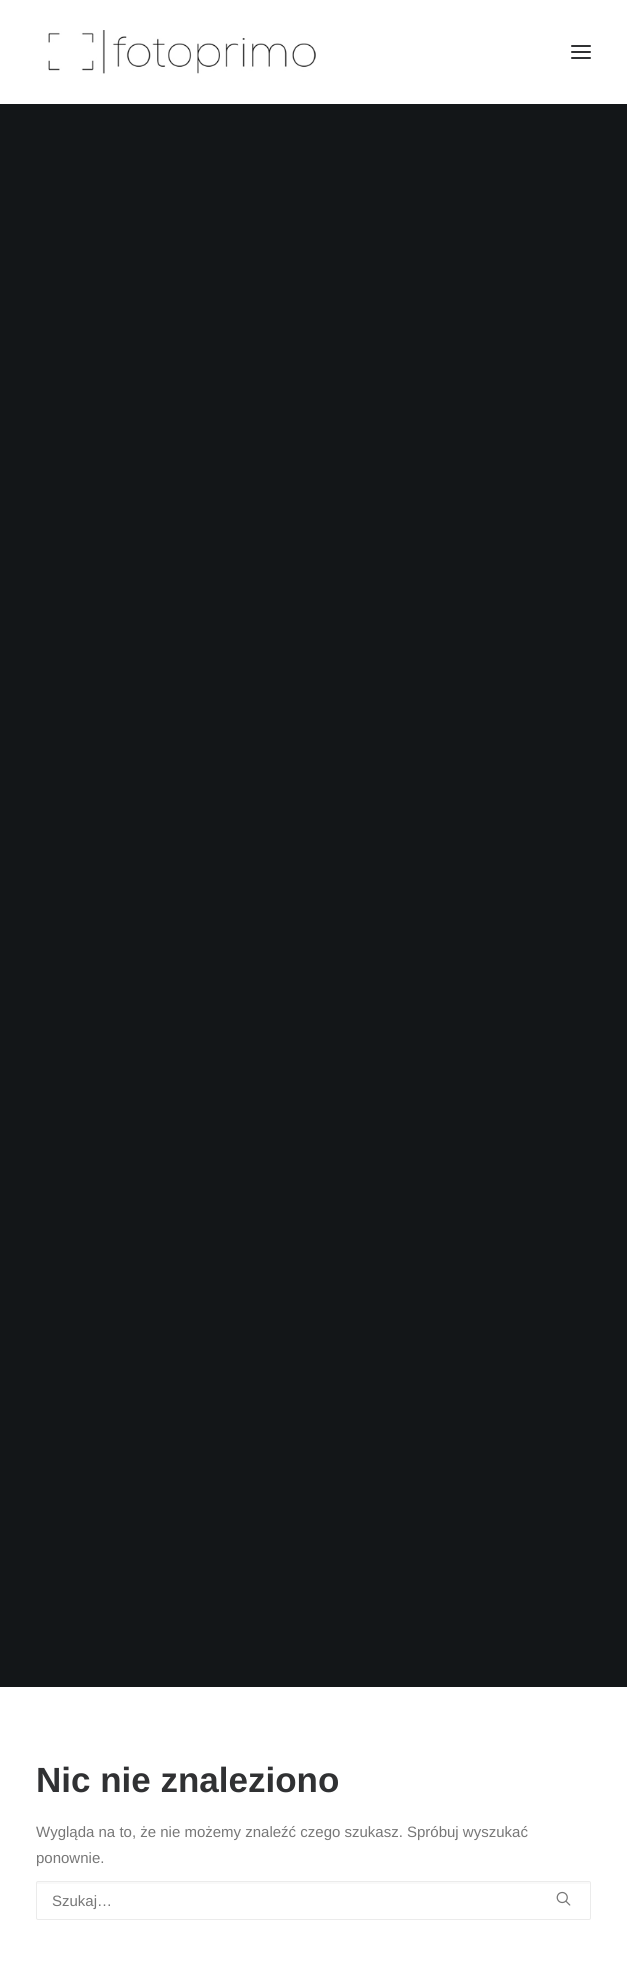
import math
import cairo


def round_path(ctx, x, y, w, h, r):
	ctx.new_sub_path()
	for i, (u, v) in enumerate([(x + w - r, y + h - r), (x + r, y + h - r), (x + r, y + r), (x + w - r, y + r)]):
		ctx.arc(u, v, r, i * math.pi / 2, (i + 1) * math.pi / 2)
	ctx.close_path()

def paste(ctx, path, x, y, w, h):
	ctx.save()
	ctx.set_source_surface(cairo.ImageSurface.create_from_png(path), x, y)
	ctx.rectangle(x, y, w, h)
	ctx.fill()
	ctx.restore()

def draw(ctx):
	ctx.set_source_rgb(0.078, 0.086, 0.094)
	ctx.paint()
	ctx.set_source_rgb(1, 1, 1)
	ctx.rectangle(0, 0, 627, 104)
	ctx.fill()
	paste(ctx, 'media/1.png', 48, 30, 268, 44)
	ctx.set_source_rgb(0.188, 0.192, 0.2)
	round_path(ctx, 571, 51, 20, 2, 1)
	ctx.fill()
	round_path(ctx, 571, 45, 20, 2, 1)
	ctx.fill()
	round_path(ctx, 571, 57, 20, 2, 1)
	ctx.fill()
	ctx.set_source_rgb(1, 1, 1)
	ctx.rectangle(0, 1687, 627, 300)
	ctx.fill()
	ctx.select_font_face('Liberation Sans', cairo.FONT_SLANT_NORMAL, cairo.FONT_WEIGHT_BOLD)
	ctx.set_font_size(35)
	ctx.set_source_rgb(0.188, 0.192, 0.2)
	ctx.move_to(36, 1792)
	ctx.show_text('Nic nie znaleziono')
	ctx.select_font_face('Liberation Sans')
	ctx.set_font_size(15)
	ctx.set_source_rgb(0.467, 0.467, 0.467)
	ctx.move_to(36, 1837)
	ctx.show_text('Wygląda na to, że nie możemy znaleźć czego szukasz. Spróbuj wyszukać')
	ctx.move_to(36, 1863)
	ctx.show_text('ponownie.')
	ctx.set_source_rgb(0.976, 0.976, 0.976)
	ctx.new_path()
	ctx.move_to(38, 1884)
	ctx.line_to(589, 1884)
	ctx.curve_to(590, 1884, 590, 1884, 590, 1885)
	ctx.curve_to(590, 1884, 590, 1882, 589, 1882)
	ctx.line_to(38, 1882)
	ctx.line_to(37, 1882)
	ctx.line_to(37, 1885)
	ctx.curve_to(37, 1884, 37, 1884, 38, 1884)
	ctx.close_path()
	ctx.fill()
	round_path(ctx, 36.5, 1881.5, 554, 38, 1.5)
	ctx.set_source_rgb(0.918, 0.918, 0.918)
	ctx.set_line_width(1)
	ctx.stroke()
	ctx.set_source_rgb(0.467, 0.467, 0.467)
	ctx.move_to(52, 1906)
	ctx.show_text('Szukaj…')
	paste(ctx, 'media/2.png', 556, 1891, 15, 15)


surface = cairo.ImageSurface(cairo.FORMAT_RGB24, 627, 1987)
ctx = cairo.Context(surface)
options = cairo.FontOptions()
options.set_hint_metrics(cairo.HINT_METRICS_OFF)
options.set_hint_style(cairo.HINT_STYLE_NONE)
ctx.set_font_options(options)
ctx.set_miter_limit(4)
draw(ctx)
surface.write_to_png('image.png')
